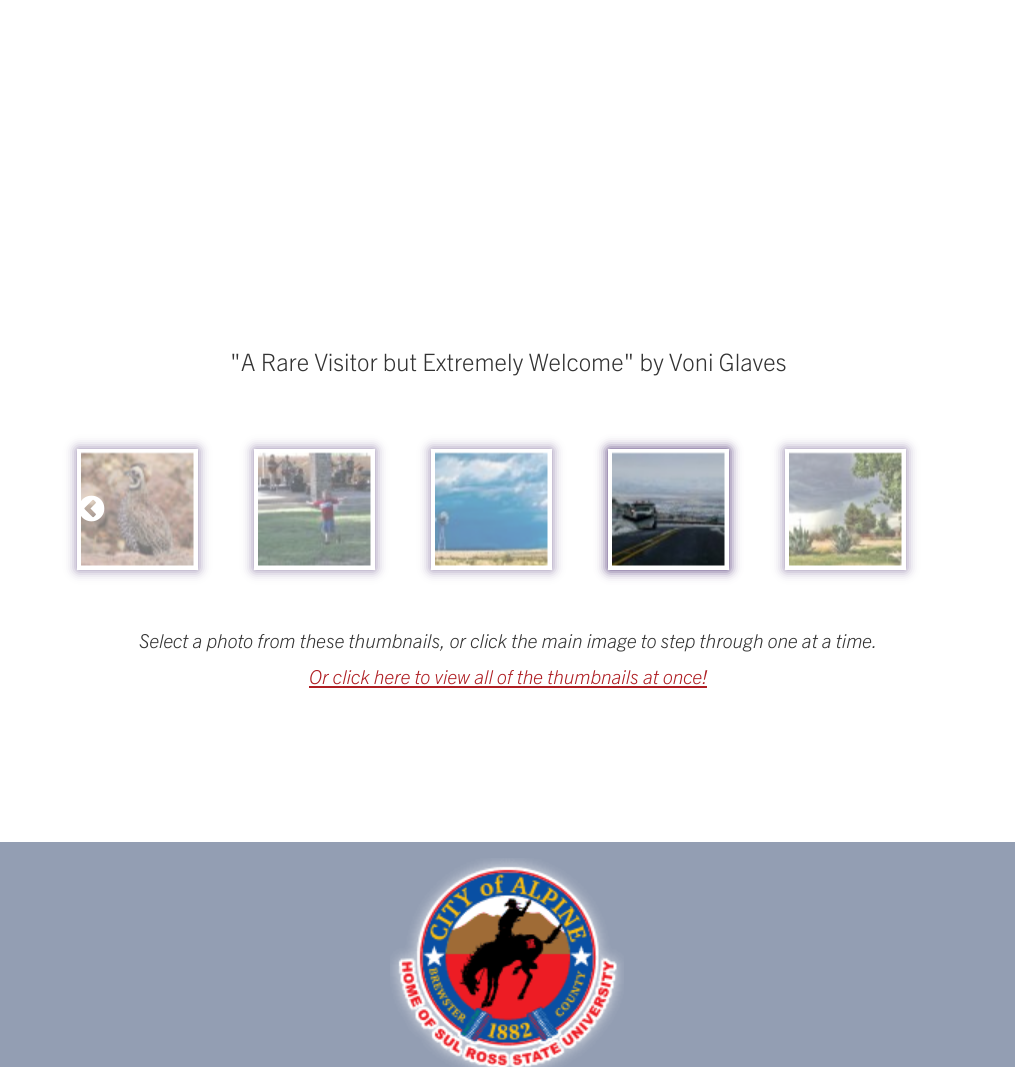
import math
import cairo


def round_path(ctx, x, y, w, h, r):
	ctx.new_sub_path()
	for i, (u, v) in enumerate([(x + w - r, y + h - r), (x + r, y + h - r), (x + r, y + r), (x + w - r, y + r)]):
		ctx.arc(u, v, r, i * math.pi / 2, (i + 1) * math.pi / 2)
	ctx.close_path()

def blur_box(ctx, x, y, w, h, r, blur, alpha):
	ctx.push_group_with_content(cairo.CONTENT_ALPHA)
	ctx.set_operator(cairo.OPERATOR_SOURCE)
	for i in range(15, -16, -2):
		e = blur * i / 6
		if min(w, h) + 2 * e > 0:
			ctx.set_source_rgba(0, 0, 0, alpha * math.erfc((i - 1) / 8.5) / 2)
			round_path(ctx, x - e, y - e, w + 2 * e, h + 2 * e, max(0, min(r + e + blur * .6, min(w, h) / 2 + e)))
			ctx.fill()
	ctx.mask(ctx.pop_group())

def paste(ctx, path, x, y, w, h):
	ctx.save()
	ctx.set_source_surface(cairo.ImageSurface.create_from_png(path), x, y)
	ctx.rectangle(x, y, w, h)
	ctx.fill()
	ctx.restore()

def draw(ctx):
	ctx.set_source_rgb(0.576, 0.62, 0.702)
	ctx.paint()
	ctx.set_source_rgb(1, 1, 1)
	ctx.rectangle(0, 0, 1015, 842)
	ctx.fill()
	ctx.select_font_face('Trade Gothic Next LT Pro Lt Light')
	ctx.set_font_size(24)
	ctx.set_source_rgb(0.2, 0.2, 0.2)
	ctx.move_to(230, 371)
	ctx.show_text('"A Rare Visitor but Extremely Welcome" by Voni Glaves')
	ctx.save()
	ctx.set_fill_rule(cairo.FILL_RULE_EVEN_ODD)
	ctx.new_path()
	ctx.move_to(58, 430)
	ctx.line_to(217, 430)
	ctx.line_to(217, 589)
	ctx.line_to(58, 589)
	ctx.close_path()
	ctx.move_to(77, 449)
	ctx.line_to(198, 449)
	ctx.line_to(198, 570)
	ctx.line_to(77, 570)
	ctx.close_path()
	ctx.clip()
	ctx.set_source_rgb(0.576, 0.514, 0.667)
	blur_box(ctx, 77, 449, 121, 121, 0, 6, 1)
	ctx.restore()
	ctx.rectangle(79.5, 451.5, 116, 116)
	ctx.set_source_rgb(1, 1, 1)
	ctx.set_line_width(5)
	ctx.stroke()
	paste(ctx, 'media/1.png', 81, 452, 113, 114)
	ctx.save()
	ctx.set_fill_rule(cairo.FILL_RULE_EVEN_ODD)
	ctx.new_path()
	ctx.move_to(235, 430)
	ctx.line_to(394, 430)
	ctx.line_to(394, 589)
	ctx.line_to(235, 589)
	ctx.close_path()
	ctx.move_to(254, 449)
	ctx.line_to(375, 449)
	ctx.line_to(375, 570)
	ctx.line_to(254, 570)
	ctx.close_path()
	ctx.clip()
	ctx.set_source_rgb(0.576, 0.514, 0.667)
	blur_box(ctx, 254, 449, 121, 121, 0, 6, 1)
	ctx.restore()
	ctx.rectangle(256.5, 451.5, 116, 116)
	ctx.stroke()
	paste(ctx, 'media/2.png', 258, 452, 113, 114)
	ctx.save()
	ctx.set_fill_rule(cairo.FILL_RULE_EVEN_ODD)
	ctx.new_path()
	ctx.move_to(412, 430)
	ctx.line_to(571, 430)
	ctx.line_to(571, 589)
	ctx.line_to(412, 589)
	ctx.close_path()
	ctx.move_to(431, 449)
	ctx.line_to(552, 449)
	ctx.line_to(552, 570)
	ctx.line_to(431, 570)
	ctx.close_path()
	ctx.clip()
	ctx.set_source_rgb(0.576, 0.514, 0.667)
	blur_box(ctx, 431, 449, 121, 121, 0, 6, 1)
	ctx.restore()
	ctx.rectangle(433.5, 451.5, 116, 116)
	ctx.stroke()
	paste(ctx, 'media/3.png', 435, 452, 113, 114)
	ctx.save()
	ctx.set_fill_rule(cairo.FILL_RULE_EVEN_ODD)
	ctx.new_path()
	ctx.move_to(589, 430)
	ctx.line_to(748, 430)
	ctx.line_to(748, 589)
	ctx.line_to(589, 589)
	ctx.close_path()
	ctx.move_to(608, 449)
	ctx.line_to(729, 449)
	ctx.line_to(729, 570)
	ctx.line_to(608, 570)
	ctx.close_path()
	ctx.clip()
	ctx.set_source_rgb(0.294, 0.188, 0.447)
	blur_box(ctx, 608, 449, 121, 121, 0, 6, 1)
	ctx.restore()
	ctx.rectangle(610.5, 451.5, 116, 116)
	ctx.stroke()
	paste(ctx, 'media/4.png', 612, 452, 113, 114)
	ctx.save()
	ctx.set_fill_rule(cairo.FILL_RULE_EVEN_ODD)
	ctx.new_path()
	ctx.move_to(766, 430)
	ctx.line_to(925, 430)
	ctx.line_to(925, 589)
	ctx.line_to(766, 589)
	ctx.close_path()
	ctx.move_to(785, 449)
	ctx.line_to(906, 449)
	ctx.line_to(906, 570)
	ctx.line_to(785, 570)
	ctx.close_path()
	ctx.clip()
	ctx.set_source_rgb(0.576, 0.514, 0.667)
	blur_box(ctx, 785, 449, 121, 121, 0, 6, 1)
	ctx.restore()
	ctx.rectangle(787.5, 451.5, 116, 116)
	ctx.stroke()
	paste(ctx, 'media/5.png', 789, 452, 113, 114)
	paste(ctx, 'media/6.png', 81, 495, 24, 27)
	ctx.select_font_face('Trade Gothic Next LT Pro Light', cairo.FONT_SLANT_ITALIC)
	ctx.set_font_size(19.2)
	ctx.set_source_rgb(0.2, 0.2, 0.2)
	ctx.move_to(139, 648)
	ctx.show_text('Select a photo from these thumbnails, or click the main image to step through one at a time.')
	ctx.set_source_rgb(0.686, 0.118, 0.137)
	ctx.move_to(309, 684)
	ctx.show_text('Or click here to view all of the thumbnails at once!')
	ctx.rectangle(309, 686, 398, 2)
	ctx.fill()
	paste(ctx, 'media/7.png', 390, 858, 234, 209)


surface = cairo.ImageSurface(cairo.FORMAT_RGB24, 1015, 1067)
ctx = cairo.Context(surface)
options = cairo.FontOptions()
options.set_hint_metrics(cairo.HINT_METRICS_OFF)
options.set_hint_style(cairo.HINT_STYLE_NONE)
ctx.set_font_options(options)
ctx.set_miter_limit(4)
draw(ctx)
surface.write_to_png('image.png')
